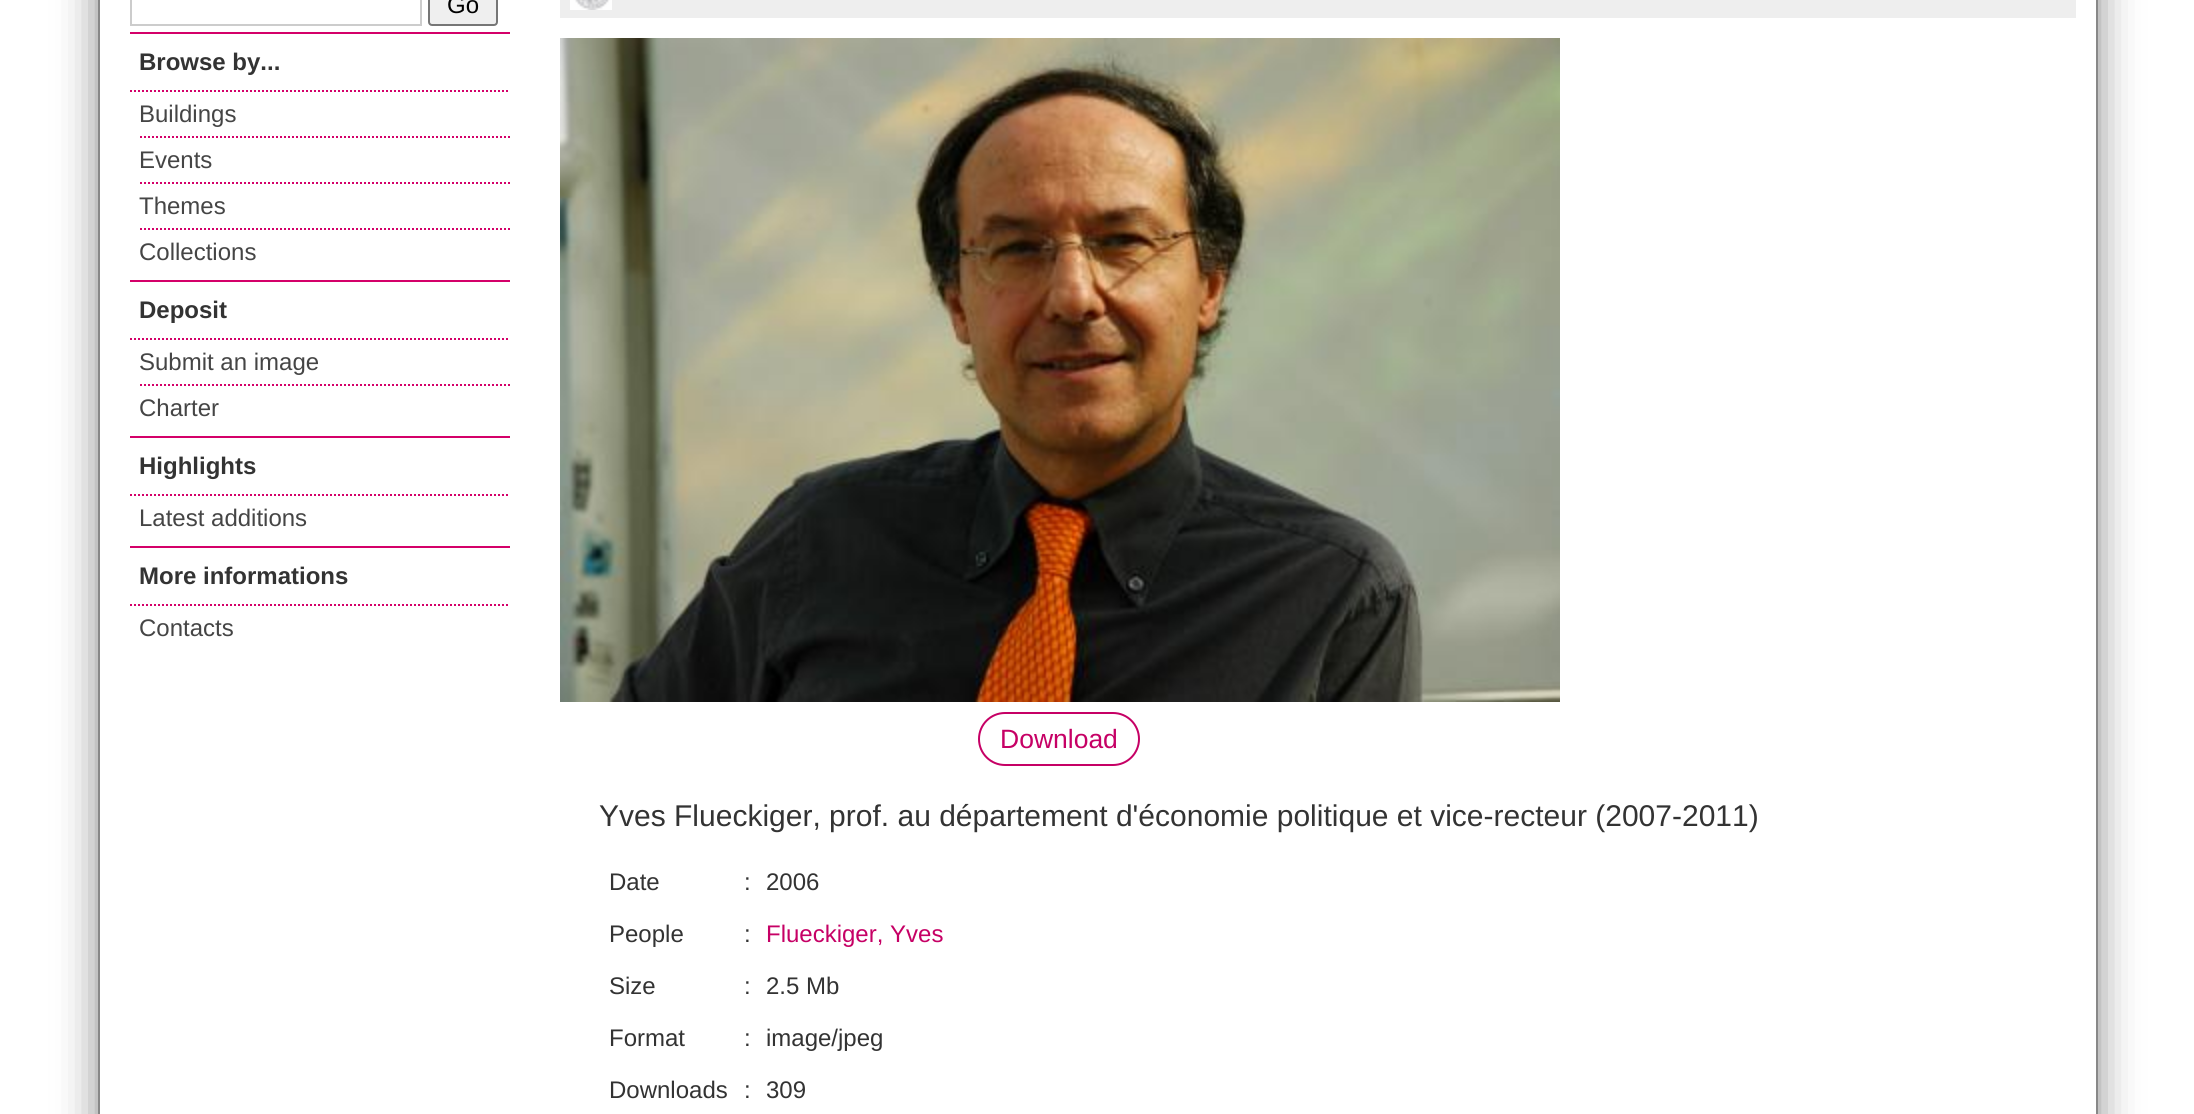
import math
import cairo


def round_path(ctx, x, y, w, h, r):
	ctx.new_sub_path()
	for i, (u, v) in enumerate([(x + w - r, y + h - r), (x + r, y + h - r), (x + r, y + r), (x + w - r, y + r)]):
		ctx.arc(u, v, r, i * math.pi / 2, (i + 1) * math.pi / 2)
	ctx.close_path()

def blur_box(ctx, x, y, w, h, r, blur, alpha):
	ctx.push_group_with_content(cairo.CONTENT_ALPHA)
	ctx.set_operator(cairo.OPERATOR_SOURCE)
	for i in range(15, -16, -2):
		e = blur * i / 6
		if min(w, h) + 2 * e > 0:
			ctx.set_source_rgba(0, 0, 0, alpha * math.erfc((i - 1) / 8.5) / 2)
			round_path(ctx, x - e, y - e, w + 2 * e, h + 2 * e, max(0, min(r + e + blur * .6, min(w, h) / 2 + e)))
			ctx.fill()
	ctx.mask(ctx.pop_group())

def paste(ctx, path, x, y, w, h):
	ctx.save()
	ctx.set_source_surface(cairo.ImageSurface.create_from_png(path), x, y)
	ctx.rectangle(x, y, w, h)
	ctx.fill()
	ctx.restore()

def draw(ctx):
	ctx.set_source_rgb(1, 1, 1)
	ctx.paint()
	ctx.save()
	ctx.set_fill_rule(cairo.FILL_RULE_EVEN_ODD)
	ctx.new_path()
	ctx.move_to(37, 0)
	ctx.line_to(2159, 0)
	ctx.line_to(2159, 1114)
	ctx.line_to(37, 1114)
	ctx.close_path()
	ctx.move_to(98, -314)
	ctx.line_to(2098, -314)
	ctx.line_to(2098, 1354)
	ctx.line_to(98, 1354)
	ctx.close_path()
	ctx.clip()
	ctx.set_source_rgb(0.533, 0.533, 0.533)
	blur_box(ctx, 98, -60, 2000, 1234, 0, 20, 1)
	ctx.restore()
	ctx.set_source_rgb(0.533, 0.533, 0.533)
	ctx.rectangle(2096, 0, 2, 1114)
	ctx.fill()
	ctx.rectangle(98, 0, 2, 1114)
	ctx.fill()
	ctx.rectangle(131, -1, 290, 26)
	ctx.set_source_rgb(0.8, 0.8, 0.8)
	ctx.stroke()
	ctx.set_source_rgb(0.937, 0.937, 0.937)
	round_path(ctx, 429, -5, 68, 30, 3)
	ctx.fill_preserve()
	ctx.set_source_rgb(0.463, 0.463, 0.463)
	ctx.stroke()
	ctx.select_font_face('Liberation Sans')
	ctx.set_font_size(24)
	ctx.set_source_rgb(0, 0, 0)
	ctx.move_to(447, 13)
	ctx.show_text('Go')
	ctx.set_source_rgb(0.831, 0, 0.412)
	ctx.rectangle(130, 32, 380, 2)
	ctx.fill()
	ctx.new_path()
	ctx.move_to(130, 91)
	ctx.line_to(510, 91)
	ctx.set_dash([2, 2])
	ctx.stroke()
	ctx.select_font_face('Liberation Sans', cairo.FONT_SLANT_NORMAL, cairo.FONT_WEIGHT_BOLD)
	ctx.set_source_rgb(0.2, 0.2, 0.2)
	ctx.move_to(139, 70)
	ctx.show_text('Browse by...')
	ctx.new_path()
	ctx.move_to(140, 137)
	ctx.line_to(510, 137)
	ctx.set_source_rgb(0.831, 0, 0.412)
	ctx.stroke()
	ctx.select_font_face('Liberation Sans')
	ctx.set_source_rgb(0.271, 0.271, 0.271)
	ctx.move_to(139, 122)
	ctx.show_text('Buildings')
	ctx.new_path()
	ctx.move_to(140, 183)
	ctx.line_to(510, 183)
	ctx.set_source_rgb(0.831, 0, 0.412)
	ctx.stroke()
	ctx.set_source_rgb(0.271, 0.271, 0.271)
	ctx.move_to(139, 168)
	ctx.show_text('Events')
	ctx.new_path()
	ctx.move_to(140, 229)
	ctx.line_to(510, 229)
	ctx.set_source_rgb(0.831, 0, 0.412)
	ctx.stroke()
	ctx.set_source_rgb(0.271, 0.271, 0.271)
	ctx.move_to(139, 214)
	ctx.show_text('Themes')
	ctx.move_to(139, 260)
	ctx.show_text('Collections')
	ctx.set_source_rgb(0.831, 0, 0.412)
	ctx.rectangle(130, 280, 380, 2)
	ctx.fill()
	ctx.new_path()
	ctx.move_to(130, 339)
	ctx.line_to(510, 339)
	ctx.stroke()
	ctx.select_font_face('Liberation Sans', cairo.FONT_SLANT_NORMAL, cairo.FONT_WEIGHT_BOLD)
	ctx.set_source_rgb(0.2, 0.2, 0.2)
	ctx.move_to(139, 318)
	ctx.show_text('Deposit')
	ctx.new_path()
	ctx.move_to(140, 385)
	ctx.line_to(510, 385)
	ctx.set_source_rgb(0.831, 0, 0.412)
	ctx.stroke()
	ctx.select_font_face('Liberation Sans')
	ctx.set_source_rgb(0.271, 0.271, 0.271)
	ctx.move_to(139, 370)
	ctx.show_text('Submit an image')
	ctx.move_to(139, 416)
	ctx.show_text('Charter')
	ctx.set_source_rgb(0.831, 0, 0.412)
	ctx.rectangle(130, 436, 380, 2)
	ctx.fill()
	ctx.new_path()
	ctx.move_to(130, 495)
	ctx.line_to(510, 495)
	ctx.stroke()
	ctx.select_font_face('Liberation Sans', cairo.FONT_SLANT_NORMAL, cairo.FONT_WEIGHT_BOLD)
	ctx.set_source_rgb(0.2, 0.2, 0.2)
	ctx.move_to(139, 474)
	ctx.show_text('Highlights')
	ctx.select_font_face('Liberation Sans')
	ctx.set_source_rgb(0.271, 0.271, 0.271)
	ctx.move_to(139, 526)
	ctx.show_text('Latest additions')
	ctx.set_source_rgb(0.831, 0, 0.412)
	ctx.rectangle(130, 546, 380, 2)
	ctx.fill()
	ctx.new_path()
	ctx.move_to(130, 605)
	ctx.line_to(510, 605)
	ctx.stroke()
	ctx.select_font_face('Liberation Sans', cairo.FONT_SLANT_NORMAL, cairo.FONT_WEIGHT_BOLD)
	ctx.set_source_rgb(0.2, 0.2, 0.2)
	ctx.move_to(139, 584)
	ctx.show_text('More informations')
	ctx.select_font_face('Liberation Sans')
	ctx.set_source_rgb(0.271, 0.271, 0.271)
	ctx.move_to(139, 636)
	ctx.show_text('Contacts')
	ctx.set_source_rgb(0.933, 0.933, 0.933)
	ctx.rectangle(560, 0, 1516, 18)
	ctx.fill()
	paste(ctx, 'media/1.png', 570, 0, 42, 10)
	paste(ctx, 'media/2.png', 560, 38, 1000, 664)
	round_path(ctx, 979, 713, 160, 52, 26)
	ctx.set_source_rgb(0.776, 0, 0.396)
	ctx.set_dash([])
	ctx.stroke()
	ctx.set_font_size(26.5)
	ctx.move_to(1000, 748)
	ctx.show_text('Download')
	ctx.set_font_size(30)
	ctx.set_source_rgb(0.2, 0.2, 0.2)
	ctx.move_to(599, 826)
	ctx.show_text('Yves Flueckiger, prof. au département d\'économie politique et vice-recteur (2007-2011)')
	ctx.set_font_size(24)
	for x, y, s in [
		(609, 890, 'Date'),
		(744, 890, ':'),
		(766, 890, '2006'),
		(609, 942, 'People'),
		(744, 942, ':'),
	]:
		ctx.move_to(x, y)
		ctx.show_text(s)
	ctx.set_source_rgb(0.776, 0, 0.396)
	ctx.move_to(766, 942)
	ctx.show_text('Flueckiger, Yves')
	ctx.set_source_rgb(0.2, 0.2, 0.2)
	for x, y, s in [
		(609, 994, 'Size'),
		(744, 994, ':'),
		(766, 994, '2.5 Mb'),
		(609, 1046, 'Format'),
		(744, 1046, ':'),
		(766, 1046, 'image/jpeg'),
		(609, 1098, 'Downloads'),
		(744, 1098, ':'),
		(766, 1098, '309'),
	]:
		ctx.move_to(x, y)
		ctx.show_text(s)


surface = cairo.ImageSurface(cairo.FORMAT_RGB24, 2194, 1114)
ctx = cairo.Context(surface)
options = cairo.FontOptions()
options.set_hint_metrics(cairo.HINT_METRICS_OFF)
options.set_hint_style(cairo.HINT_STYLE_NONE)
ctx.set_font_options(options)
ctx.set_miter_limit(4)
draw(ctx)
surface.write_to_png('image.png')
